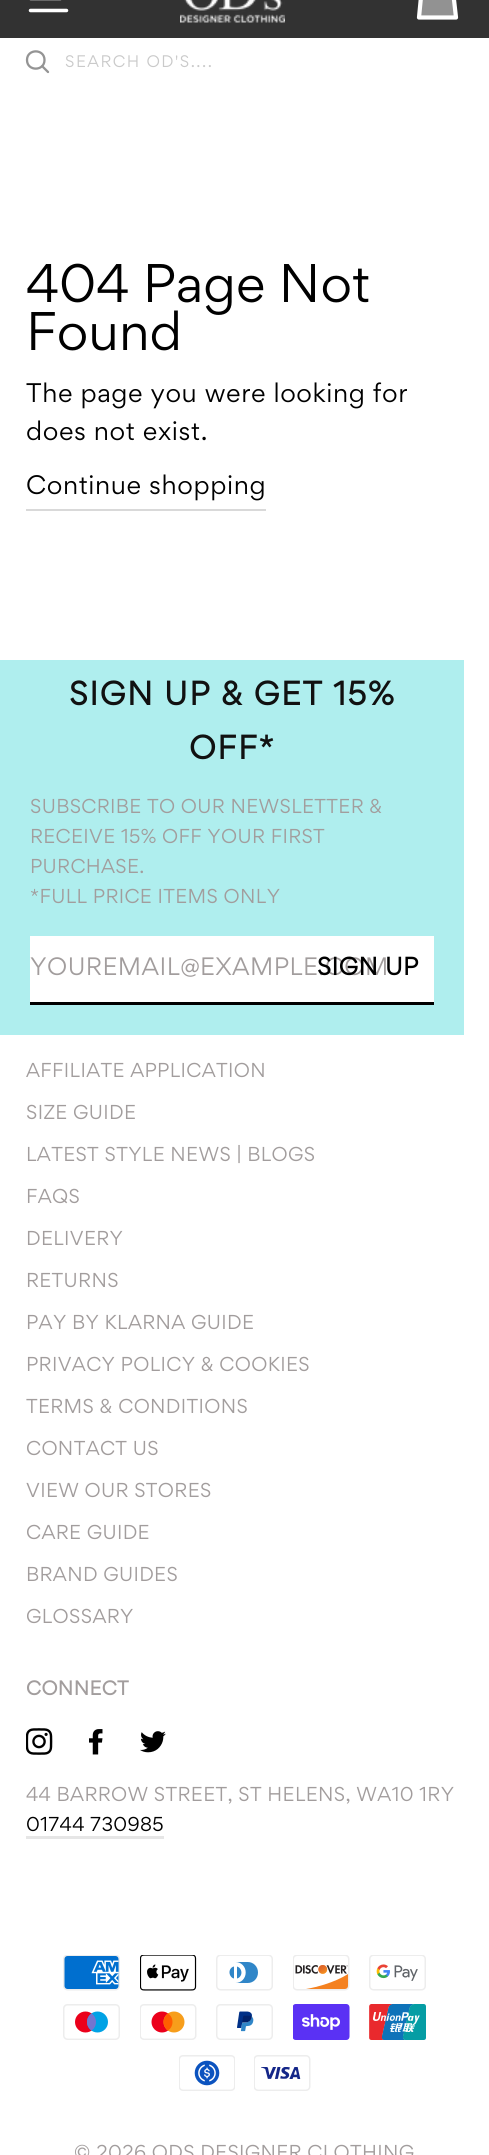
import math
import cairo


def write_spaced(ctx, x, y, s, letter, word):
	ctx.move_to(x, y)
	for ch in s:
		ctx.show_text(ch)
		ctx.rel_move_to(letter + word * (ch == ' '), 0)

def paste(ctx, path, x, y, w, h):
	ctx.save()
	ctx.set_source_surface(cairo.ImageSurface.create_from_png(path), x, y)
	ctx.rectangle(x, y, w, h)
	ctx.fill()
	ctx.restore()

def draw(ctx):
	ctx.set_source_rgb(1, 1, 1)
	ctx.paint()
	ctx.set_source_rgb(0.196, 0.196, 0.196)
	ctx.rectangle(0, 0, 489, 38)
	ctx.fill()
	ctx.new_path()
	ctx.move_to(30.5, -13.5)
	ctx.line_to(66.5, -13.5)
	ctx.move_to(30.5, -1.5)
	ctx.line_to(60.5, -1.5)
	ctx.move_to(30.5, 10.5)
	ctx.line_to(66.5, 10.5)
	ctx.set_source_rgb(1, 1, 1)
	ctx.set_line_width(3.5)
	ctx.set_line_cap(cairo.LINE_CAP_ROUND)
	ctx.set_line_join(cairo.LINE_JOIN_ROUND)
	ctx.stroke()
	paste(ctx, 'media/1.png', 180, 0, 105, 23)
	ctx.set_source_rgb(0.573, 0.573, 0.573)
	ctx.new_path()
	ctx.move_to(422, -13.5)
	ctx.line_to(452.5, -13.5)
	ctx.line_to(456, 17.5)
	ctx.line_to(419, 17.5)
	ctx.close_path()
	ctx.fill_preserve()
	ctx.set_source_rgb(1, 1, 1)
	ctx.set_line_width(4.2)
	ctx.stroke()
	ctx.new_path()
	ctx.move_to(44.5, 60)
	ctx.curve_to(44.5, 71.5, 27, 71.5, 27, 60)
	ctx.curve_to(27, 48.5, 44.5, 48.5, 44.5, 60)
	ctx.close_path()
	ctx.move_to(48, 72)
	ctx.line_to(42, 66)
	ctx.set_source_rgb(0.58, 0.58, 0.58)
	ctx.set_line_width(2.3)
	ctx.stroke()
	ctx.select_font_face('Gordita')
	ctx.set_font_size(15)
	ctx.set_source_rgb(0.792, 0.792, 0.792)
	write_spaced(ctx, 65, 67, 'SEARCH OD\'S....', 1.5, 0)
	ctx.set_font_size(48.5)
	ctx.set_source_rgb(0, 0, 0)
	ctx.move_to(26, 302)
	ctx.show_text('404 Page Not')
	ctx.move_to(26, 350)
	ctx.show_text('Found')
	ctx.set_font_size(24)
	write_spaced(ctx, 26, 402, 'The page you were looking for', 0.6, 0)
	write_spaced(ctx, 26, 440, 'does not exist.', 0.6, 0)
	ctx.set_source_rgb(0.851, 0.851, 0.851)
	ctx.rectangle(26, 509, 240, 2)
	ctx.fill()
	ctx.set_source_rgb(0, 0, 0)
	write_spaced(ctx, 26, 494, 'Continue shopping', 0.6, 0)
	ctx.set_source_rgb(0.686, 0.933, 0.933)
	ctx.rectangle(0, 660, 464, 375)
	ctx.fill()
	ctx.select_font_face('Gordita', cairo.FONT_SLANT_NORMAL, cairo.FONT_WEIGHT_BOLD)
	ctx.set_font_size(30)
	ctx.set_source_rgb(0.067, 0.067, 0.067)
	write_spaced(ctx, 69, 705, 'SIGN UP & GET 15%', 1.5, 0)
	write_spaced(ctx, 189, 759, 'OFF*', 1.5, 0)
	ctx.select_font_face('Gordita')
	ctx.set_font_size(18)
	ctx.set_source_rgb(0.635, 0.616, 0.616)
	for x, y, s in [
		(30, 813, 'SUBSCRIBE TO OUR NEWSLETTER &'),
		(30, 843, 'RECEIVE 15% OFF YOUR FIRST'),
		(30, 873, 'PURCHASE.'),
		(30, 903, '*FULL PRICE ITEMS ONLY'),
	]:
		write_spaced(ctx, x, y, s, 0.35, 0)
	ctx.set_source_rgb(1, 1, 1)
	ctx.rectangle(30, 936, 404, 66)
	ctx.fill()
	ctx.set_source_rgb(0, 0, 0)
	ctx.rectangle(30, 1002, 404, 3)
	ctx.fill()
	ctx.set_font_size(22.5)
	ctx.set_source_rgb(0.635, 0.616, 0.616)
	write_spaced(ctx, 30, 975, 'YOUREMAIL@EXAMPLE.COM', 0.45, 0)
	ctx.select_font_face('Gordita', cairo.FONT_SLANT_NORMAL, cairo.FONT_WEIGHT_BOLD)
	ctx.set_source_rgb(0, 0, 0)
	write_spaced(ctx, 317, 975, 'SIGN UP', 0.45, 0)
	ctx.select_font_face('Gordita')
	ctx.set_font_size(18)
	ctx.set_source_rgb(0.635, 0.616, 0.616)
	for x, y, s in [
		(26, 1077, 'AFFILIATE APPLICATION'),
		(26, 1119, 'SIZE GUIDE'),
		(26, 1161, 'LATEST STYLE NEWS | BLOGS'),
		(26, 1203, 'FAQS'),
		(26, 1245, 'DELIVERY'),
		(26, 1287, 'RETURNS'),
		(26, 1329, 'PAY BY KLARNA GUIDE'),
		(26, 1371, 'PRIVACY POLICY & COOKIES'),
		(26, 1413, 'TERMS & CONDITIONS'),
		(26, 1455, 'CONTACT US'),
		(26, 1497, 'VIEW OUR STORES'),
		(26, 1539, 'CARE GUIDE'),
		(26, 1581, 'BRAND GUIDES'),
		(26, 1623, 'GLOSSARY'),
	]:
		write_spaced(ctx, x, y, s, 0.35, 0)
	ctx.select_font_face('Gordita', cairo.FONT_SLANT_NORMAL, cairo.FONT_WEIGHT_BOLD)
	write_spaced(ctx, 26, 1695, 'CONNECT', 0.35, 0)
	paste(ctx, 'media/2.png', 26, 1728, 27, 27)
	paste(ctx, 'media/3.png', 89, 1729, 14, 26)
	paste(ctx, 'media/4.png', 140, 1731, 26, 22)
	ctx.select_font_face('Gordita')
	write_spaced(ctx, 26, 1801, '44 BARROW STREET, ST HELENS, WA10 1RY', 0.35, 0)
	ctx.set_source_rgb(0, 0, 0)
	write_spaced(ctx, 26, 1831, '01744 730985', 0.35, 0)
	ctx.set_source_rgb(0.902, 0.902, 0.902)
	ctx.rectangle(26, 1836, 138, 3)
	ctx.fill()
	paste(ctx, 'media/5.png', 63, 1955, 57, 36)
	paste(ctx, 'media/6.png', 140, 1955, 57, 36)
	paste(ctx, 'media/7.png', 216, 1955, 57, 36)
	paste(ctx, 'media/8.png', 293, 1955, 57, 36)
	paste(ctx, 'media/9.png', 369, 1955, 57, 36)
	paste(ctx, 'media/10.png', 63, 2004, 57, 36)
	paste(ctx, 'media/11.png', 140, 2004, 57, 36)
	paste(ctx, 'media/12.png', 216, 2004, 57, 36)
	paste(ctx, 'media/13.png', 293, 2004, 57, 36)
	paste(ctx, 'media/14.png', 369, 2004, 57, 36)
	paste(ctx, 'media/15.png', 179, 2055, 56, 36)
	paste(ctx, 'media/16.png', 254, 2055, 57, 36)
	ctx.set_source_rgb(0.635, 0.616, 0.616)
	write_spaced(ctx, 74, 2159, '© 2026 ODS DESIGNER CLOTHING', 0.35, 0)


surface = cairo.ImageSurface(cairo.FORMAT_RGB24, 489, 2155)
ctx = cairo.Context(surface)
options = cairo.FontOptions()
options.set_hint_metrics(cairo.HINT_METRICS_OFF)
options.set_hint_style(cairo.HINT_STYLE_NONE)
ctx.set_font_options(options)
ctx.set_miter_limit(4)
draw(ctx)
surface.write_to_png('image.png')
